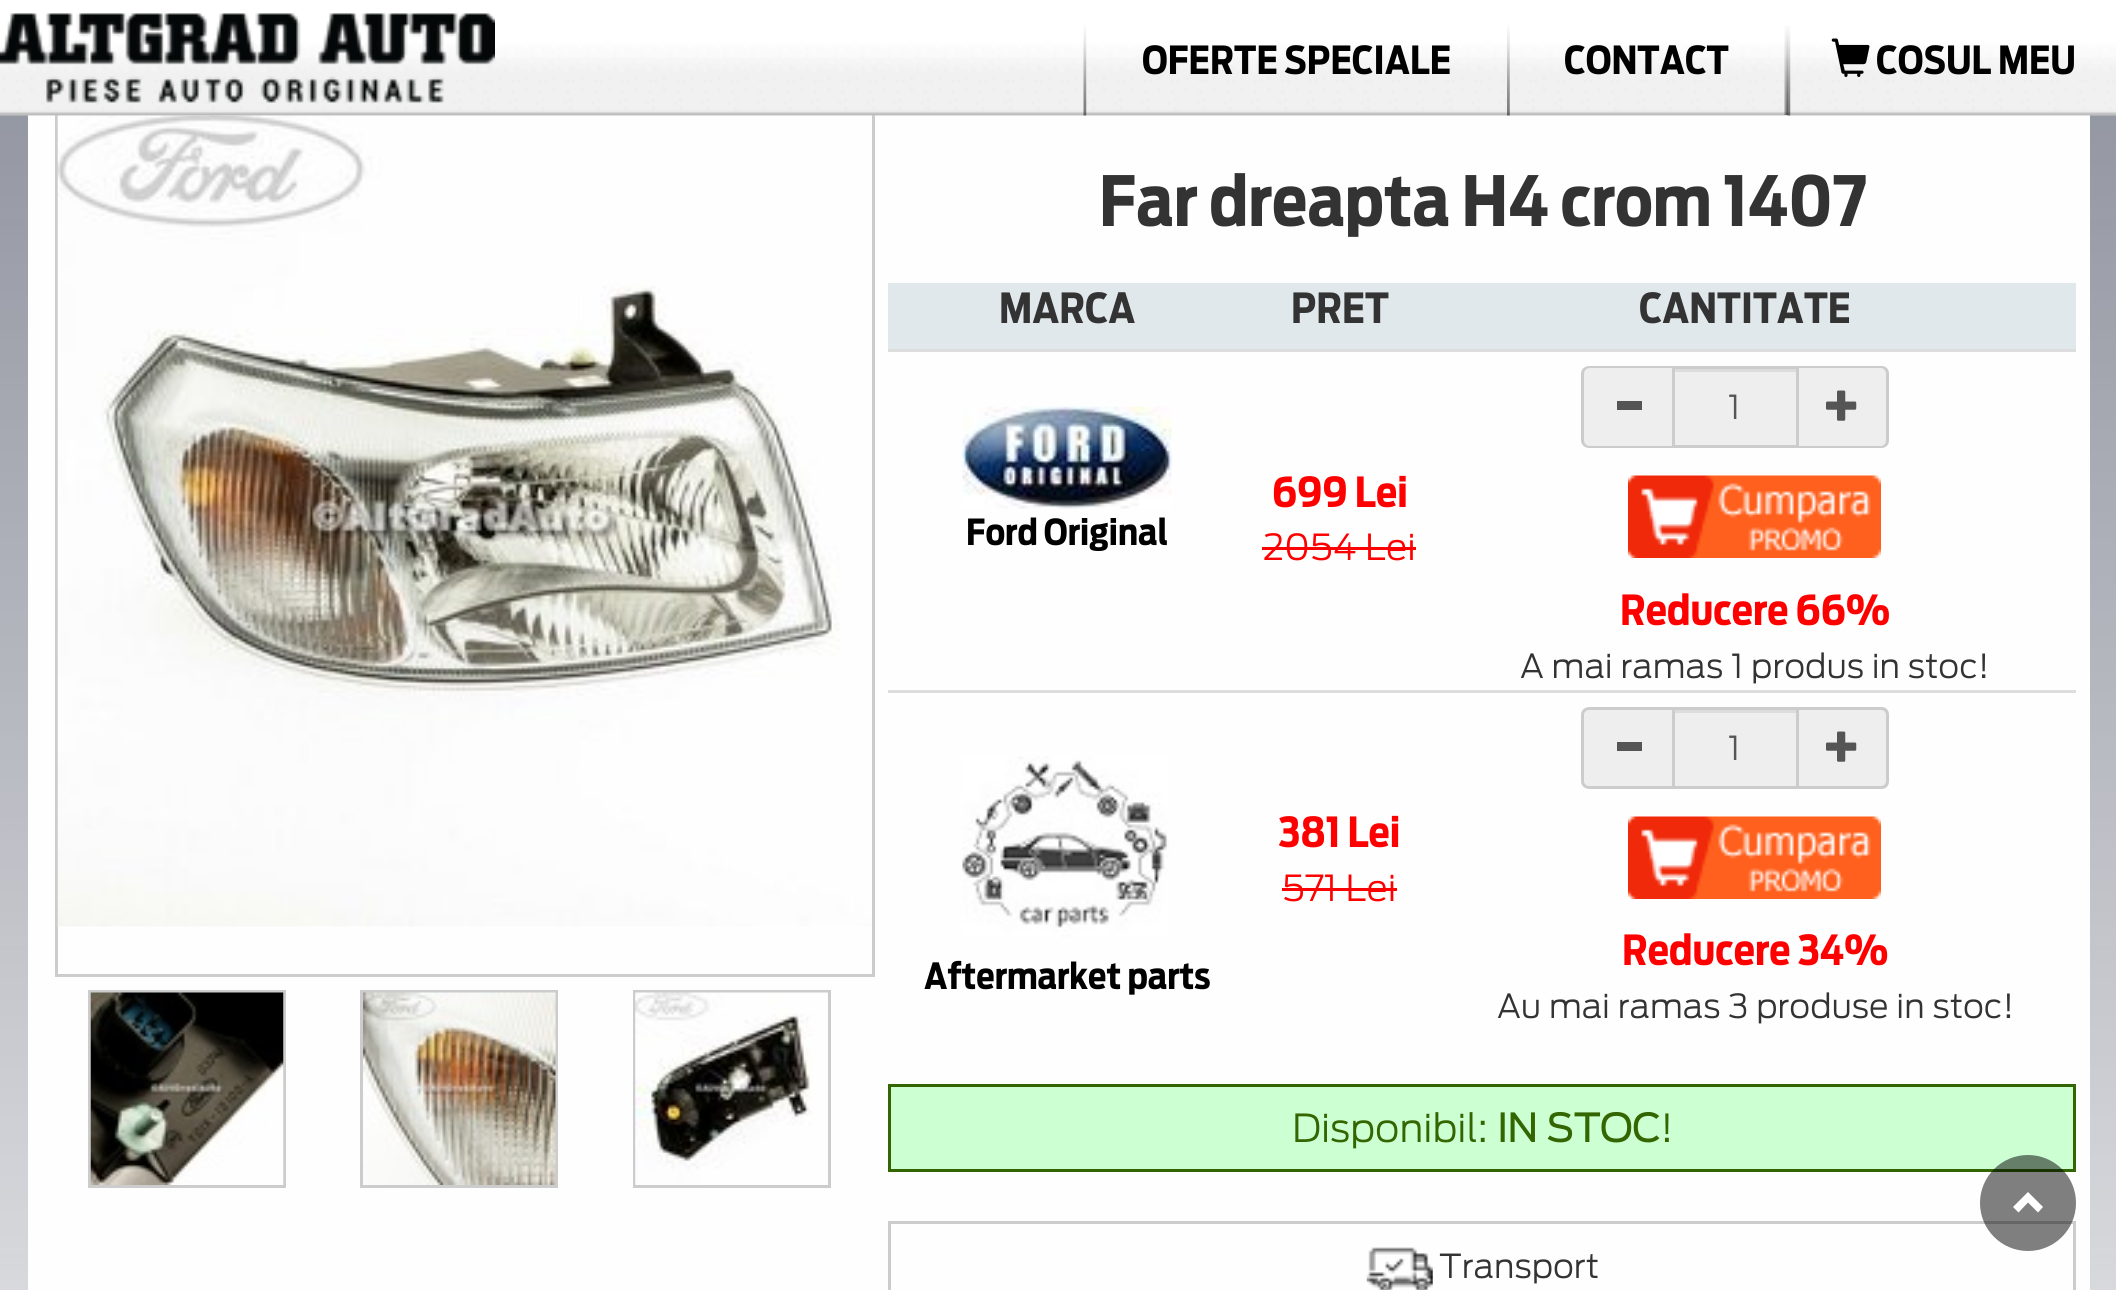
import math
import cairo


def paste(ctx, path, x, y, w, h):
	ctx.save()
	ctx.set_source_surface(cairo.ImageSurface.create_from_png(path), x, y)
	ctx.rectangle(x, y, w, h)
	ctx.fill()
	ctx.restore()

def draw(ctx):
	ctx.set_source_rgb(1, 1, 1)
	ctx.paint()
	paste(ctx, 'media/1.png', 0, 115, 2116, 1175)
	ctx.set_source_rgb(0.996, 0.996, 0.996)
	ctx.rectangle(28, 115, 2062, 1175)
	ctx.fill()
	ctx.set_source_rgb(0.8, 0.8, 0.8)
	ctx.rectangle(872, 110, 3, 866)
	ctx.rectangle(55, 974, 820, 3)
	ctx.rectangle(55, 110, 3, 866)
	ctx.fill()
	paste(ctx, 'media/9.png', 57, 115, 815, 812)
	paste(ctx, 'media/2.png', 0, 0, 2116, 116)
	paste(ctx, 'media/3.png', 0, 13, 495, 90)
	paste(ctx, 'media/4.png', 1083, 25, 4, 91)
	ctx.select_font_face('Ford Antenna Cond', cairo.FONT_SLANT_NORMAL, cairo.FONT_WEIGHT_BOLD)
	ctx.set_font_size(38.5)
	ctx.set_source_rgb(0, 0, 0)
	ctx.move_to(1142, 74)
	ctx.show_text('OFERTE SPECIALE')
	paste(ctx, 'media/5.png', 1507, 25, 3, 91)
	ctx.move_to(1564, 74)
	ctx.show_text('CONTACT')
	paste(ctx, 'media/6.png', 1784, 25, 4, 90)
	paste(ctx, 'media/7.png', 1787, 25, 4, 91)
	paste(ctx, 'media/8.png', 1831, 38, 39, 39)
	ctx.move_to(1876, 74)
	ctx.show_text('COSUL MEU')
	ctx.rectangle(89.5, 991.5, 195, 195)
	ctx.set_source_rgb(0.8, 0.8, 0.8)
	ctx.set_line_width(3)
	ctx.stroke()
	paste(ctx, 'media/10.png', 90, 992, 194, 193)
	ctx.rectangle(361.5, 991.5, 195, 195)
	ctx.stroke()
	paste(ctx, 'media/11.png', 363, 992, 193, 193)
	ctx.rectangle(634.5, 991.5, 195, 195)
	ctx.stroke()
	paste(ctx, 'media/12.png', 635, 992, 193, 193)
	ctx.set_font_size(68.75)
	ctx.set_source_rgb(0.2, 0.2, 0.2)
	ctx.move_to(1099, 226)
	ctx.show_text('Far dreapta H4 crom 1407')
	ctx.set_source_rgb(0.882, 0.91, 0.925)
	ctx.rectangle(888, 283, 1188, 66)
	ctx.fill()
	ctx.set_font_size(41.25)
	ctx.set_source_rgb(0.2, 0.2, 0.2)
	for x, y, s in [
		(999, 323, 'MARCA'),
		(1291, 323, 'PRET'),
		(1639, 323, 'CANTITATE'),
	]:
		ctx.move_to(x, y)
		ctx.show_text(s)
	paste(ctx, 'media/13.png', 962, 406, 210, 103)
	ctx.set_font_size(35.75)
	ctx.set_source_rgb(0, 0, 0)
	ctx.move_to(966, 545)
	ctx.show_text('Ford Original')
	ctx.set_font_size(41.25)
	ctx.set_source_rgb(1, 0, 0)
	ctx.move_to(1272, 507)
	ctx.show_text('699 Lei')
	ctx.select_font_face('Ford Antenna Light')
	ctx.set_font_size(35.75)
	ctx.move_to(1263, 560)
	ctx.show_text('2054 Lei')
	ctx.rectangle(1262, 547, 154, 3)
	ctx.fill()
	ctx.set_source_rgb(0.867, 0.867, 0.867)
	ctx.rectangle(888, 349, 1188, 3)
	ctx.fill()
	ctx.set_source_rgb(0.933, 0.933, 0.933)
	ctx.new_path()
	ctx.move_to(1589, 366)
	ctx.line_to(1672, 366)
	ctx.line_to(1672, 448)
	ctx.line_to(1589, 448)
	ctx.curve_to(1584.5, 448, 1581, 444.5, 1581, 440)
	ctx.line_to(1581, 374)
	ctx.curve_to(1581, 369.5, 1584.5, 366, 1589, 366)
	ctx.close_path()
	ctx.fill()
	ctx.set_source_rgb(0.8, 0.8, 0.8)
	ctx.set_fill_rule(cairo.FILL_RULE_EVEN_ODD)
	ctx.new_path()
	ctx.move_to(1590, 366)
	ctx.line_to(1672, 366)
	ctx.line_to(1672, 448)
	ctx.line_to(1590, 448)
	ctx.curve_to(1585, 448, 1581, 445, 1581, 440)
	ctx.line_to(1581, 374)
	ctx.curve_to(1581, 369, 1585, 366, 1590, 366)
	ctx.close_path()
	ctx.move_to(1590, 368)
	ctx.line_to(1672, 368)
	ctx.line_to(1672, 446)
	ctx.line_to(1590, 446)
	ctx.curve_to(1586, 446, 1584, 443, 1584, 440)
	ctx.line_to(1584, 374)
	ctx.curve_to(1584, 371, 1586, 368, 1590, 368)
	ctx.close_path()
	ctx.fill()
	ctx.set_source_rgb(0.333, 0.333, 0.333)
	ctx.rectangle(1617, 401, 25, 9)
	ctx.fill()
	ctx.set_source_rgb(0.933, 0.933, 0.933)
	ctx.rectangle(1675, 372, 121, 73)
	ctx.fill()
	ctx.set_source_rgb(0.863, 0.863, 0.863)
	ctx.rectangle(1675, 369, 121, 3)
	ctx.fill()
	ctx.set_source_rgb(0.933, 0.933, 0.933)
	ctx.new_path()
	ctx.move_to(1799, 366)
	ctx.line_to(1881, 366)
	ctx.curve_to(1885.5, 366, 1889, 369.5, 1889, 374)
	ctx.line_to(1889, 440)
	ctx.curve_to(1889, 444.5, 1885.5, 448, 1881, 448)
	ctx.line_to(1799, 448)
	ctx.close_path()
	ctx.fill()
	ctx.set_source_rgb(0.8, 0.8, 0.8)
	ctx.new_path()
	ctx.move_to(1798, 366)
	ctx.line_to(1881, 366)
	ctx.curve_to(1886, 366, 1889, 369, 1889, 374)
	ctx.line_to(1889, 440)
	ctx.curve_to(1889, 445, 1886, 448, 1881, 448)
	ctx.line_to(1798, 448)
	ctx.close_path()
	ctx.move_to(1798, 368)
	ctx.line_to(1881, 368)
	ctx.curve_to(1884, 368, 1886, 371, 1886, 374)
	ctx.line_to(1886, 440)
	ctx.curve_to(1886, 443, 1884, 446, 1881, 446)
	ctx.line_to(1798, 446)
	ctx.close_path()
	ctx.fill()
	ctx.rectangle(1673.5, 367.5, 124, 79)
	ctx.stroke()
	ctx.set_font_size(33)
	ctx.set_source_rgb(0.333, 0.333, 0.333)
	ctx.move_to(1728, 419)
	ctx.show_text('1')
	paste(ctx, 'media/14.png', 1826, 390, 31, 31)
	paste(ctx, 'media/15.png', 1628, 475, 253, 83)
	ctx.select_font_face('Ford Antenna Cond', cairo.FONT_SLANT_NORMAL, cairo.FONT_WEIGHT_BOLD)
	ctx.set_font_size(41.25)
	ctx.set_source_rgb(1, 0, 0)
	ctx.move_to(1620, 625)
	ctx.show_text('Reducere 66%')
	ctx.select_font_face('Ford Antenna Light')
	ctx.set_font_size(33)
	ctx.set_source_rgb(0.2, 0.2, 0.2)
	ctx.move_to(1520, 678)
	ctx.show_text('A mai ramas 1 produs in stoc!')
	ctx.select_font_face('Ford Antenna Cond', cairo.FONT_SLANT_NORMAL, cairo.FONT_WEIGHT_BOLD)
	ctx.set_font_size(41.25)
	ctx.set_source_rgb(1, 0, 0)
	ctx.move_to(1278, 847)
	ctx.show_text('381 Lei')
	ctx.select_font_face('Ford Antenna Light')
	ctx.set_font_size(35.75)
	ctx.move_to(1282, 901)
	ctx.show_text('571 Lei')
	ctx.rectangle(1282, 888, 115, 3)
	ctx.fill()
	ctx.set_source_rgb(0.867, 0.867, 0.867)
	ctx.rectangle(888, 690, 1188, 3)
	ctx.fill()
	ctx.set_source_rgb(0.933, 0.933, 0.933)
	ctx.new_path()
	ctx.move_to(1589, 707)
	ctx.line_to(1672, 707)
	ctx.line_to(1672, 789)
	ctx.line_to(1589, 789)
	ctx.curve_to(1584.5, 789, 1581, 785.5, 1581, 781)
	ctx.line_to(1581, 715)
	ctx.curve_to(1581, 710.5, 1584.5, 707, 1589, 707)
	ctx.close_path()
	ctx.fill()
	ctx.set_source_rgb(0.8, 0.8, 0.8)
	ctx.new_path()
	ctx.move_to(1590, 707)
	ctx.line_to(1672, 707)
	ctx.line_to(1672, 789)
	ctx.line_to(1590, 789)
	ctx.curve_to(1585, 789, 1581, 786, 1581, 781)
	ctx.line_to(1581, 715)
	ctx.curve_to(1581, 710, 1585, 707, 1590, 707)
	ctx.close_path()
	ctx.move_to(1590, 710)
	ctx.line_to(1672, 710)
	ctx.line_to(1672, 786)
	ctx.line_to(1590, 786)
	ctx.curve_to(1586, 786, 1584, 784, 1584, 781)
	ctx.line_to(1584, 715)
	ctx.curve_to(1584, 712, 1586, 710, 1590, 710)
	ctx.close_path()
	ctx.fill()
	ctx.set_source_rgb(0.333, 0.333, 0.333)
	ctx.rectangle(1617, 742, 25, 9)
	ctx.fill()
	ctx.set_source_rgb(0.933, 0.933, 0.933)
	ctx.rectangle(1675, 713, 121, 73)
	ctx.fill()
	ctx.set_source_rgb(0.863, 0.863, 0.863)
	ctx.rectangle(1675, 710, 121, 3)
	ctx.fill()
	ctx.set_source_rgb(0.933, 0.933, 0.933)
	ctx.new_path()
	ctx.move_to(1799, 707)
	ctx.line_to(1881, 707)
	ctx.curve_to(1885.5, 707, 1889, 710.5, 1889, 715)
	ctx.line_to(1889, 781)
	ctx.curve_to(1889, 785.5, 1885.5, 789, 1881, 789)
	ctx.line_to(1799, 789)
	ctx.close_path()
	ctx.fill()
	ctx.set_source_rgb(0.8, 0.8, 0.8)
	ctx.new_path()
	ctx.move_to(1798, 707)
	ctx.line_to(1881, 707)
	ctx.curve_to(1886, 707, 1889, 710, 1889, 715)
	ctx.line_to(1889, 781)
	ctx.curve_to(1889, 786, 1886, 789, 1881, 789)
	ctx.line_to(1798, 789)
	ctx.close_path()
	ctx.move_to(1798, 710)
	ctx.line_to(1881, 710)
	ctx.curve_to(1884, 710, 1886, 712, 1886, 715)
	ctx.line_to(1886, 781)
	ctx.curve_to(1886, 784, 1884, 786, 1881, 786)
	ctx.line_to(1798, 786)
	ctx.close_path()
	ctx.fill()
	ctx.rectangle(1673.5, 708.5, 124, 79)
	ctx.stroke()
	ctx.set_font_size(33)
	ctx.set_source_rgb(0.333, 0.333, 0.333)
	ctx.move_to(1728, 760)
	ctx.show_text('1')
	paste(ctx, 'media/14.png', 1826, 731, 31, 31)
	paste(ctx, 'media/15.png', 1628, 816, 253, 83)
	ctx.select_font_face('Ford Antenna Cond', cairo.FONT_SLANT_NORMAL, cairo.FONT_WEIGHT_BOLD)
	ctx.set_font_size(41.25)
	ctx.set_source_rgb(1, 0, 0)
	ctx.move_to(1622, 965)
	ctx.show_text('Reducere 34%')
	ctx.select_font_face('Ford Antenna Light')
	ctx.set_font_size(33)
	ctx.set_source_rgb(0.2, 0.2, 0.2)
	ctx.move_to(1497, 1018)
	ctx.show_text('Au mai ramas 3 produse in stoc!')
	paste(ctx, 'media/16.png', 962, 756, 207, 181)
	ctx.select_font_face('Ford Antenna Cond', cairo.FONT_SLANT_NORMAL, cairo.FONT_WEIGHT_BOLD)
	ctx.set_font_size(35.75)
	ctx.set_source_rgb(0, 0, 0)
	ctx.move_to(924, 989)
	ctx.show_text('Aftermarket parts')
	ctx.set_source_rgb(0.8, 1, 0.824)
	ctx.rectangle(889.5, 1085.5, 1185, 85)
	ctx.fill_preserve()
	ctx.set_source_rgb(0.2, 0.4, 0)
	ctx.stroke()
	ctx.select_font_face('Ford Antenna Light')
	ctx.set_font_size(38.5)
	ctx.move_to(1292, 1142)
	ctx.show_text('Disponibil:')
	ctx.select_font_face('Ford Antenna', cairo.FONT_SLANT_NORMAL, cairo.FONT_WEIGHT_BOLD)
	ctx.move_to(1497, 1142)
	ctx.show_text('IN STOC')
	ctx.select_font_face('Ford Antenna Light')
	ctx.move_to(1660, 1142)
	ctx.show_text('!')
	ctx.rectangle(889.5, 1222.5, 1185, 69)
	ctx.set_source_rgb(0.8, 0.8, 0.8)
	ctx.stroke()
	paste(ctx, 'media/17.png', 1366, 1247, 67, 43)
	ctx.set_font_size(33)
	ctx.set_source_rgb(0.2, 0.2, 0.2)
	ctx.move_to(1439, 1278)
	ctx.show_text('Transport')
	ctx.set_source_rgba(0, 0, 0, 0.5)
	ctx.new_path()
	ctx.arc(2028, 1203, 48, 0, 2 * math.pi)
	ctx.fill()
	ctx.set_source_rgb(1, 1, 1)
	ctx.set_fill_rule(cairo.FILL_RULE_WINDING)
	ctx.new_path()
	ctx.move_to(2043, 1207)
	ctx.line_to(2038, 1212.5)
	ctx.line_to(2028, 1202.5)
	ctx.line_to(2018.5, 1212.5)
	ctx.line_to(2013, 1207)
	ctx.line_to(2028, 1192)
	ctx.close_path()
	ctx.fill()


surface = cairo.ImageSurface(cairo.FORMAT_RGB24, 2116, 1290)
ctx = cairo.Context(surface)
options = cairo.FontOptions()
options.set_hint_metrics(cairo.HINT_METRICS_OFF)
options.set_hint_style(cairo.HINT_STYLE_NONE)
ctx.set_font_options(options)
ctx.set_miter_limit(4)
draw(ctx)
surface.write_to_png('image.png')
